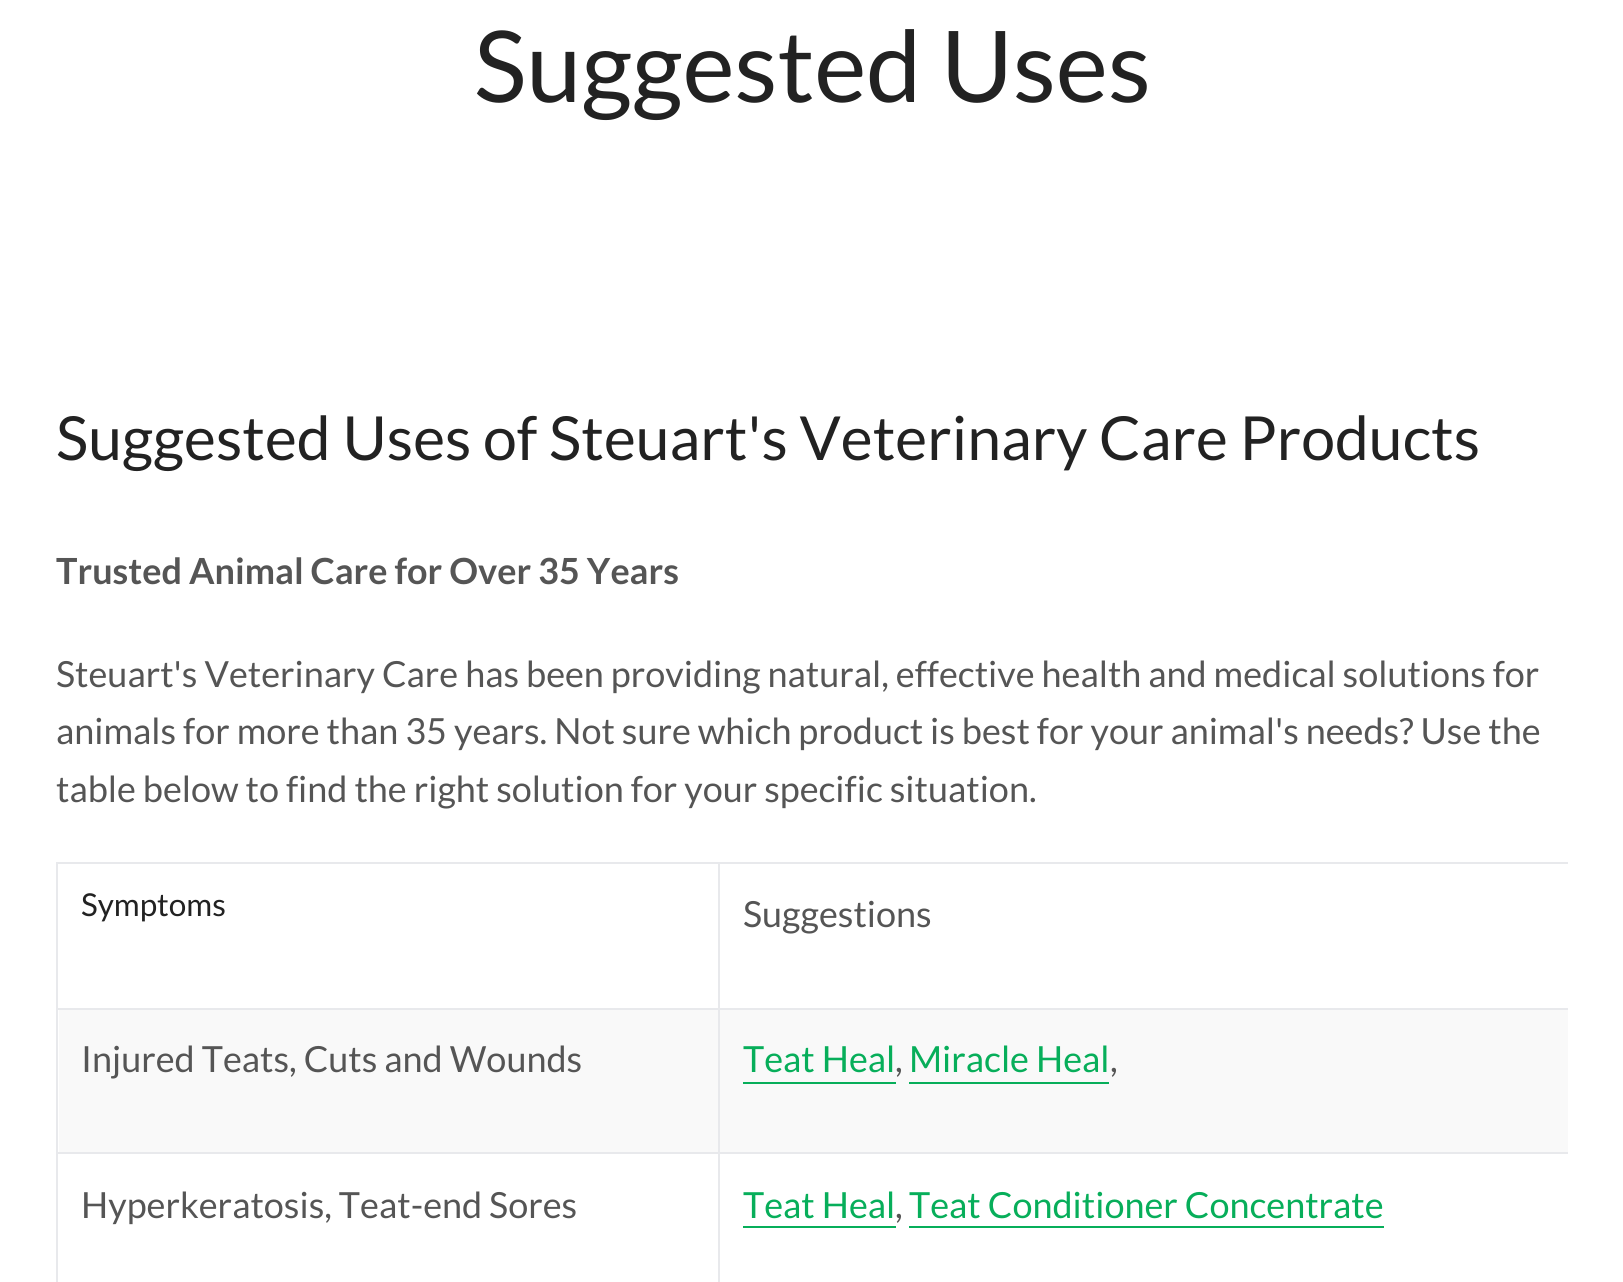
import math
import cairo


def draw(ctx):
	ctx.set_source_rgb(1, 1, 1)
	ctx.paint()
	ctx.select_font_face('Lato')
	ctx.set_font_size(99)
	ctx.set_source_rgb(0.133, 0.133, 0.133)
	ctx.move_to(474, 102)
	ctx.show_text('Suggested Uses')
	ctx.set_font_size(60.75)
	ctx.move_to(56, 460)
	ctx.show_text('Suggested Uses of Steuart\'s Veterinary Care Products')
	ctx.select_font_face('Lato', cairo.FONT_SLANT_NORMAL, cairo.FONT_WEIGHT_BOLD)
	ctx.set_font_size(36)
	ctx.set_source_rgb(0.333, 0.333, 0.333)
	ctx.move_to(56, 584)
	ctx.show_text('Trusted Animal Care for Over 35 Years')
	ctx.select_font_face('Lato')
	for x, y, s in [
		(56, 687, 'Steuart\'s Veterinary Care has been providing natural, effective health and medical solutions for'),
		(56, 744, 'animals for more than 35 years. Not sure which product is best for your animal\'s needs? Use the'),
		(56, 802, 'table below to find the right solution for your specific situation.'),
	]:
		ctx.move_to(x, y)
		ctx.show_text(s)
	ctx.set_source_rgb(0.91, 0.914, 0.922)
	ctx.rectangle(718, 862, 850, 2)
	ctx.rectangle(718, 1008, 850, 2)
	ctx.fill()
	ctx.set_source_rgb(0.976, 0.976, 0.976)
	ctx.rectangle(59, 1010, 1509, 142)
	ctx.fill()
	ctx.set_source_rgb(0.91, 0.914, 0.922)
	ctx.rectangle(718, 1152, 850, 2)
	ctx.rectangle(718, 1152, 2, 130)
	ctx.rectangle(56, 1152, 664, 2)
	ctx.rectangle(718, 1008, 2, 146)
	ctx.rectangle(56, 1008, 664, 2)
	ctx.rectangle(718, 862, 2, 148)
	ctx.rectangle(56, 862, 664, 2)
	ctx.rectangle(56, 1152, 2, 130)
	ctx.rectangle(56, 1008, 2, 146)
	ctx.rectangle(56, 862, 2, 148)
	ctx.fill()
	ctx.set_font_size(31.5)
	ctx.set_source_rgb(0.133, 0.133, 0.133)
	ctx.move_to(81, 916)
	ctx.show_text('Symptoms')
	ctx.set_font_size(36)
	ctx.set_source_rgb(0.333, 0.333, 0.333)
	ctx.move_to(743, 927)
	ctx.show_text('Suggestions')
	ctx.move_to(81, 1072)
	ctx.show_text('Injured Teats, Cuts and Wounds')
	ctx.set_source_rgb(0.031, 0.682, 0.353)
	ctx.move_to(743, 1072)
	ctx.show_text('Teat Heal')
	ctx.set_source_rgb(0.333, 0.333, 0.333)
	ctx.move_to(895, 1072)
	ctx.show_text(',')
	ctx.set_source_rgb(0.031, 0.682, 0.353)
	ctx.rectangle(743, 1082, 153, 2)
	ctx.fill()
	ctx.move_to(909, 1072)
	ctx.show_text('Miracle Heal')
	ctx.set_source_rgb(0.333, 0.333, 0.333)
	ctx.move_to(1110, 1072)
	ctx.show_text(',')
	ctx.set_source_rgb(0.031, 0.682, 0.353)
	ctx.rectangle(909, 1082, 200, 2)
	ctx.fill()
	ctx.set_source_rgb(0.333, 0.333, 0.333)
	ctx.move_to(81, 1218)
	ctx.show_text('Hyperkeratosis, Teat-end Sores')
	ctx.set_source_rgb(0.031, 0.682, 0.353)
	ctx.move_to(743, 1218)
	ctx.show_text('Teat Heal')
	ctx.set_source_rgb(0.333, 0.333, 0.333)
	ctx.move_to(895, 1218)
	ctx.show_text(',')
	ctx.set_source_rgb(0.031, 0.682, 0.353)
	ctx.rectangle(743, 1226, 153, 2)
	ctx.fill()
	ctx.rectangle(909, 1226, 475, 2)
	ctx.fill()
	ctx.move_to(909, 1218)
	ctx.show_text('Teat Conditioner Concentrate')


surface = cairo.ImageSurface(cairo.FORMAT_RGB24, 1623, 1282)
ctx = cairo.Context(surface)
options = cairo.FontOptions()
options.set_hint_metrics(cairo.HINT_METRICS_OFF)
options.set_hint_style(cairo.HINT_STYLE_NONE)
ctx.set_font_options(options)
ctx.set_miter_limit(4)
draw(ctx)
surface.write_to_png('image.png')
